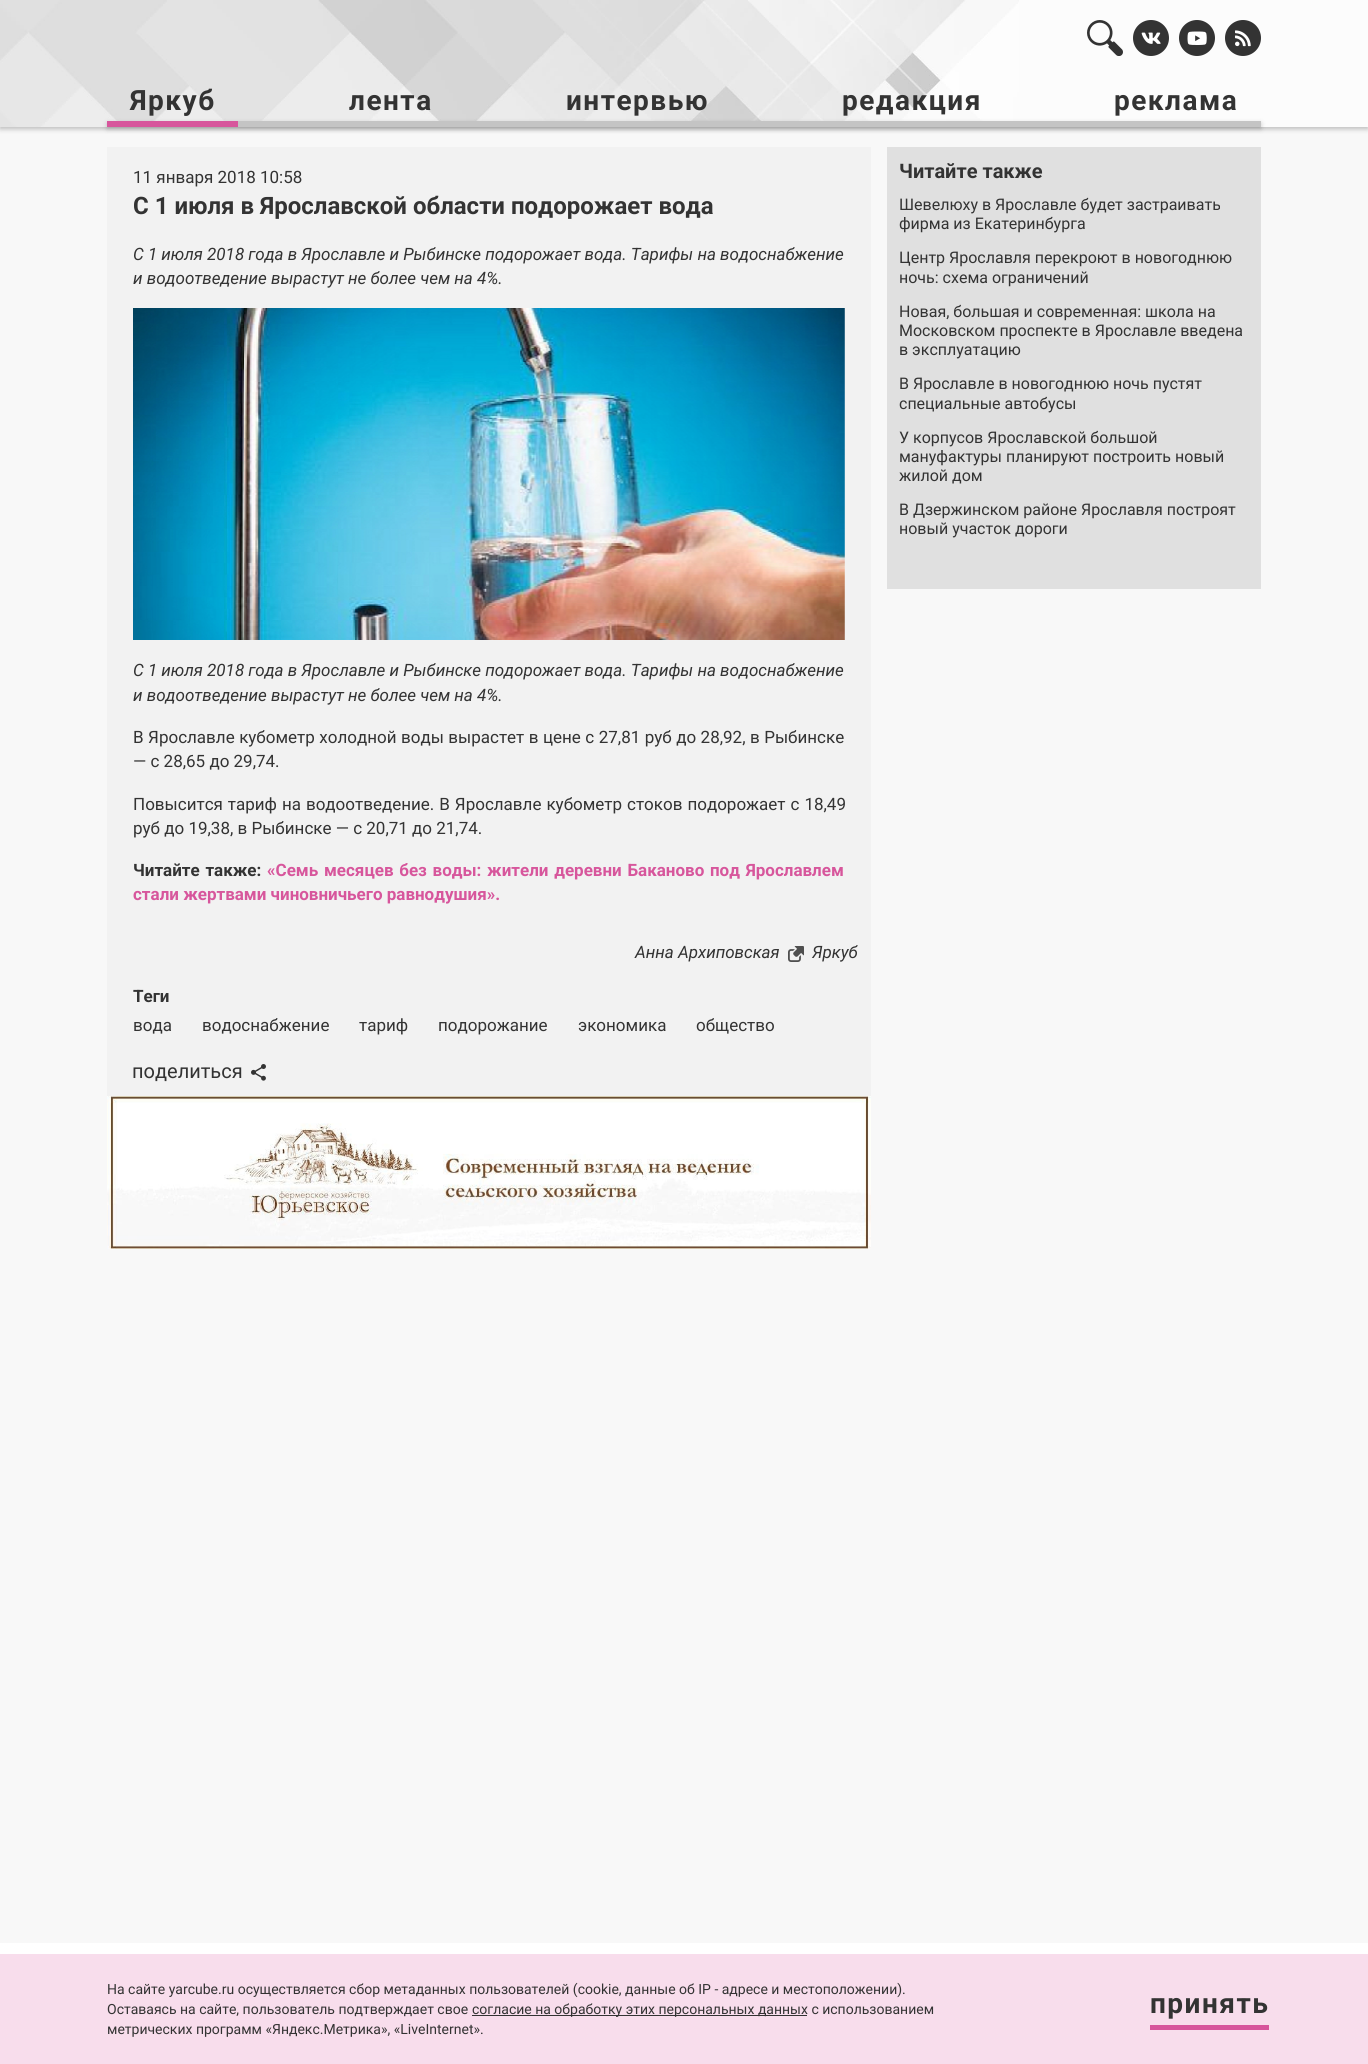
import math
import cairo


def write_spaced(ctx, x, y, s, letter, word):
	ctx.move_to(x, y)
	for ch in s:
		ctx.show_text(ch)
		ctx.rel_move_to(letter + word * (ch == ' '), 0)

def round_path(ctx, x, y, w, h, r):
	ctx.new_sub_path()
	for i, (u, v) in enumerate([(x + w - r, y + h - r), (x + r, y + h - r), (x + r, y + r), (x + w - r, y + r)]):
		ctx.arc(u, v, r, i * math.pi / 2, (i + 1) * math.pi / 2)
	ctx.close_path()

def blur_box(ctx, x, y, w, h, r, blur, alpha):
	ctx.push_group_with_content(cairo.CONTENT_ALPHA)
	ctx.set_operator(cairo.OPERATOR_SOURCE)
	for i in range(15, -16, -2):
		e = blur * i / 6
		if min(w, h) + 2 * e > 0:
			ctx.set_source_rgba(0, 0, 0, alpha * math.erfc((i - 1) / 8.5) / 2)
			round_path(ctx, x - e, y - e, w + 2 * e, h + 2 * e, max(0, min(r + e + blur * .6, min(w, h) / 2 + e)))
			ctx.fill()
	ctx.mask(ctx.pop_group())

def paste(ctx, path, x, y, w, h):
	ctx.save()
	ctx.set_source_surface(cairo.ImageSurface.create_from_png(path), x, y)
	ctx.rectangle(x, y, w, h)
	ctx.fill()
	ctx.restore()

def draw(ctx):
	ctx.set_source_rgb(0.969, 0.969, 0.969)
	ctx.paint()
	ctx.set_source_rgb(0, 0, 0)
	blur_box(ctx, 0, 2, 1368, 127, 0, 2.5, 0.25)
	ctx.set_source_rgb(0.988, 0.988, 0.988)
	ctx.rectangle(1019, 0, 349, 127)
	ctx.fill()
	paste(ctx, 'media/1.png', 0, 0, 1019, 127)
	paste(ctx, 'media/2.png', 1087, 20, 36, 36)
	ctx.set_source_rgb(0.2, 0.2, 0.2)
	ctx.arc(1151, 38, 18, 0, 2 * math.pi)
	ctx.fill()
	paste(ctx, 'media/3.png', 1141, 32, 20, 12)
	ctx.arc(1197, 38, 18, 0, 2 * math.pi)
	ctx.fill()
	paste(ctx, 'media/4.png', 1187, 31, 20, 14)
	ctx.arc(1243, 38, 18, 0, 2 * math.pi)
	ctx.fill()
	paste(ctx, 'media/5.png', 1235, 30, 16, 17)
	ctx.set_source_rgb(0.769, 0.769, 0.769)
	ctx.rectangle(238, 121, 1023, 6)
	ctx.fill()
	ctx.save()
	ctx.set_fill_rule(cairo.FILL_RULE_EVEN_ODD)
	ctx.new_path()
	ctx.move_to(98, 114)
	ctx.line_to(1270, 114)
	ctx.line_to(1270, 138)
	ctx.line_to(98, 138)
	ctx.close_path()
	ctx.move_to(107, 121)
	ctx.line_to(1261, 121)
	ctx.line_to(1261, 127)
	ctx.line_to(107, 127)
	ctx.close_path()
	ctx.clip()
	ctx.set_source_rgb(0, 0, 0)
	blur_box(ctx, 107, 123, 1154, 6, 0, 2.5, 0.2)
	ctx.restore()
	ctx.select_font_face('Roboto', cairo.FONT_SLANT_NORMAL, cairo.FONT_WEIGHT_BOLD)
	ctx.set_font_size(28)
	ctx.set_source_rgb(0.2, 0.2, 0.2)
	write_spaced(ctx, 130, 110, 'Яркуб', 1.5, 0)
	ctx.set_source_rgb(0.843, 0.337, 0.612)
	ctx.rectangle(107, 121, 131, 6)
	ctx.fill()
	ctx.set_source_rgb(0.2, 0.2, 0.2)
	for x, y, s in [
		(349, 110, 'лента'),
		(566, 110, 'интервью'),
		(842, 110, 'редакция'),
		(1114, 110, 'реклама'),
	]:
		write_spaced(ctx, x, y, s, 1.5, 0)
	ctx.set_source_rgb(0.949, 0.949, 0.949)
	ctx.rectangle(107, 147, 764, 949)
	ctx.fill()
	ctx.select_font_face('Roboto')
	ctx.set_font_size(17)
	ctx.set_source_rgb(0.2, 0.2, 0.2)
	ctx.move_to(133, 183)
	ctx.show_text('11 января 2018 10:58')
	ctx.select_font_face('Roboto', cairo.FONT_SLANT_NORMAL, cairo.FONT_WEIGHT_BOLD)
	ctx.set_font_size(24)
	ctx.move_to(133, 214)
	ctx.show_text('С 1 июля в Ярославской области подорожает вода')
	ctx.select_font_face('Roboto', cairo.FONT_SLANT_ITALIC)
	ctx.set_font_size(17)
	ctx.move_to(133, 260)
	ctx.show_text('С 1 июля 2018 года в Ярославле и Рыбинске подорожает вода. Тарифы на водоснабжение')
	ctx.move_to(133, 284)
	ctx.show_text('и водоотведение вырастут не более чем на 4%.')
	paste(ctx, 'media/6.png', 133, 308, 712, 332)
	ctx.move_to(133, 676)
	ctx.show_text('С 1 июля 2018 года в Ярославле и Рыбинске подорожает вода. Тарифы на водоснабжение')
	ctx.move_to(133, 701)
	ctx.show_text('и водоотведение вырастут не более чем на 4%.')
	ctx.select_font_face('Roboto')
	write_spaced(ctx, 133, 743, 'В Ярославле кубометр холодной воды вырастет в цене с 27,81 руб до 28,92, в Рыбинске', 0, 0.25)
	ctx.move_to(133, 767)
	ctx.show_text('— с 28,65 до 29,74.')
	write_spaced(ctx, 133, 810, 'Повысится тариф на водоотведение. В Ярославле кубометр стоков подорожает с 18,49', 0, 0.75)
	ctx.move_to(133, 834)
	ctx.show_text('руб до 19,38, в Рыбинске — с 20,71 до 21,74.')
	ctx.select_font_face('Roboto', cairo.FONT_SLANT_NORMAL, cairo.FONT_WEIGHT_BOLD)
	write_spaced(ctx, 133, 876, 'Читайте также:', 0, 1.5)
	ctx.set_source_rgb(0.843, 0.337, 0.612)
	write_spaced(ctx, 267, 876, '«Семь месяцев без воды: жители деревни Баканово под Ярославлем', 0, 1.5)
	ctx.move_to(133, 900)
	ctx.show_text('стали жертвами чиновничьего равнодушия».')
	ctx.select_font_face('Roboto', cairo.FONT_SLANT_ITALIC)
	ctx.set_source_rgb(0.2, 0.2, 0.2)
	ctx.move_to(635, 958)
	ctx.show_text('Анна Архиповская')
	paste(ctx, 'media/8.png', 788, 949, 13, 13)
	paste(ctx, 'media/7.png', 793, 946, 11, 11)
	ctx.move_to(812, 958)
	ctx.show_text('Яркуб')
	ctx.select_font_face('Roboto', cairo.FONT_SLANT_NORMAL, cairo.FONT_WEIGHT_BOLD)
	ctx.move_to(133, 1002)
	ctx.show_text('Теги')
	ctx.select_font_face('Roboto')
	for x, y, s in [
		(133, 1031, 'вода'),
		(202, 1031, 'водоснабжение'),
		(359, 1031, 'тариф'),
		(438, 1031, 'подорожание'),
		(578, 1031, 'экономика'),
		(696, 1031, 'общество'),
	]:
		ctx.move_to(x, y)
		ctx.show_text(s)
	ctx.set_font_size(20)
	ctx.move_to(132, 1078)
	ctx.show_text('поделиться')
	paste(ctx, 'media/9.png', 251, 1064, 15, 17)
	paste(ctx, 'media/10.png', 107, 1096, 764, 153)
	ctx.set_source_rgb(0.878, 0.878, 0.878)
	ctx.rectangle(887, 147, 374, 442)
	ctx.fill()
	ctx.select_font_face('Roboto', cairo.FONT_SLANT_NORMAL, cairo.FONT_WEIGHT_BOLD)
	ctx.set_source_rgb(0.2, 0.2, 0.2)
	ctx.move_to(899, 178)
	ctx.show_text('Читайте также')
	ctx.select_font_face('Roboto')
	ctx.set_font_size(16)
	for x, y, s in [
		(899, 210, 'Шевелюху в Ярославле будет застраивать'),
		(899, 229, 'фирма из Екатеринбурга'),
		(899, 263, 'Центр Ярославля перекроют в новогоднюю'),
		(899, 283, 'ночь: схема ограничений'),
		(899, 317, 'Новая, большая и современная: школа на'),
		(899, 336, 'Московском проспекте в Ярославле введена'),
		(899, 355, 'в эксплуатацию'),
		(899, 389, 'В Ярославле в новогоднюю ночь пустят'),
		(899, 409, 'специальные автобусы'),
		(899, 443, 'У корпусов Ярославской большой'),
		(899, 462, 'мануфактуры планируют построить новый'),
		(899, 481, 'жилой дом'),
		(899, 515, 'В Дзержинском районе Ярославля построят'),
		(899, 534, 'новый участок дороги'),
	]:
		ctx.move_to(x, y)
		ctx.show_text(s)
	ctx.set_source_rgb(1, 1, 1)
	ctx.rectangle(0, 1943, 1368, 11)
	ctx.fill()
	ctx.set_source_rgb(0.969, 0.867, 0.922)
	ctx.rectangle(0, 1954, 1368, 110)
	ctx.fill()
	ctx.set_font_size(14)
	ctx.set_source_rgb(0.2, 0.2, 0.2)
	ctx.move_to(107, 1994)
	ctx.show_text('На сайте yarcube.ru осуществляется сбор метаданных пользователей (cookie, данные об IP - адресе и местоположении).')
	ctx.move_to(107, 2014)
	ctx.show_text('Оставаясь на сайте, пользователь подтверждает свое')
	ctx.rectangle(472, 2015, 335, 1)
	ctx.fill()
	ctx.move_to(472, 2014)
	ctx.show_text('согласие на обработку этих персональных данных c использованием')
	ctx.move_to(107, 2034)
	ctx.show_text('метрических программ «Яндекс.Метрика», «LiveInternet».')
	ctx.select_font_face('Roboto', cairo.FONT_SLANT_NORMAL, cairo.FONT_WEIGHT_BOLD)
	ctx.set_font_size(28)
	write_spaced(ctx, 1150, 2013, 'принять', 1.5, 0)
	ctx.set_source_rgb(0.843, 0.333, 0.612)
	ctx.rectangle(1150, 2025, 119, 5)
	ctx.fill()


surface = cairo.ImageSurface(cairo.FORMAT_RGB24, 1368, 2064)
ctx = cairo.Context(surface)
options = cairo.FontOptions()
options.set_hint_metrics(cairo.HINT_METRICS_OFF)
options.set_hint_style(cairo.HINT_STYLE_NONE)
ctx.set_font_options(options)
ctx.set_miter_limit(4)
draw(ctx)
surface.write_to_png('image.png')
